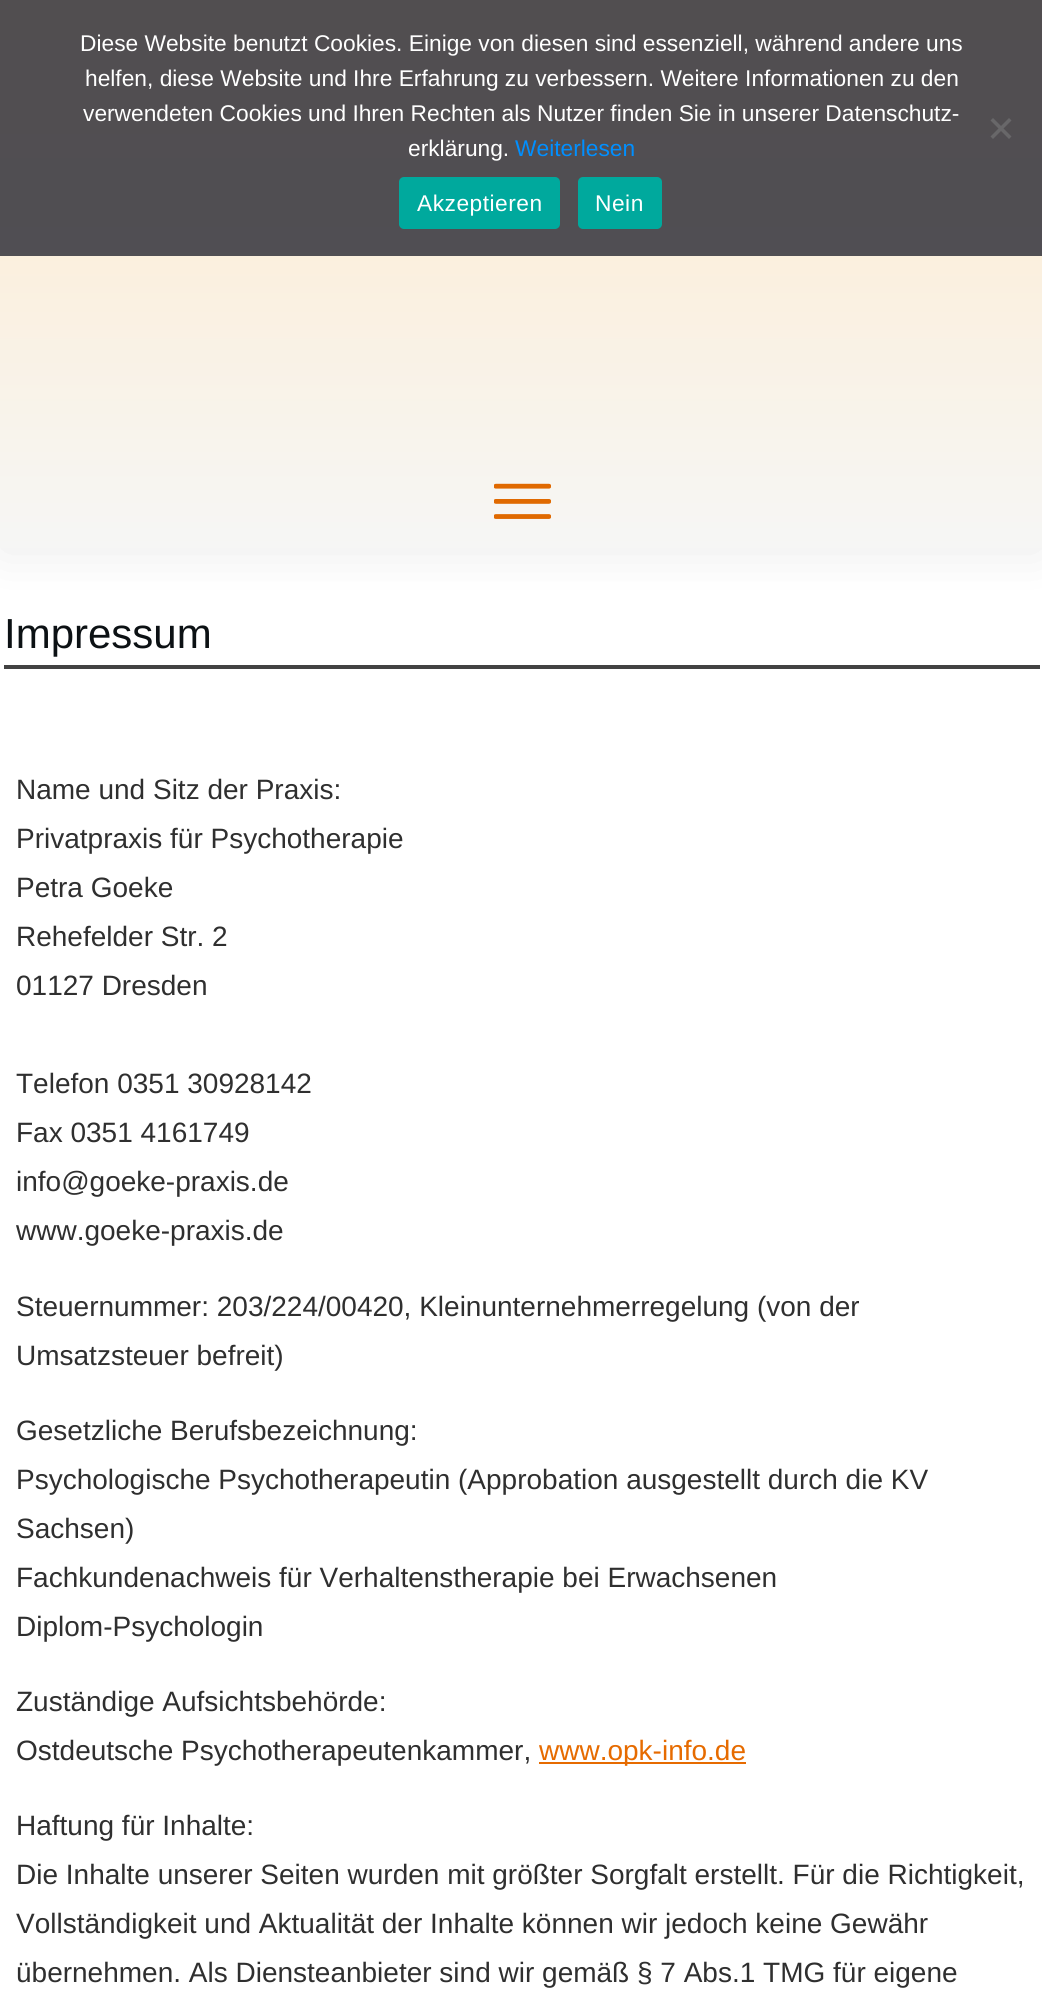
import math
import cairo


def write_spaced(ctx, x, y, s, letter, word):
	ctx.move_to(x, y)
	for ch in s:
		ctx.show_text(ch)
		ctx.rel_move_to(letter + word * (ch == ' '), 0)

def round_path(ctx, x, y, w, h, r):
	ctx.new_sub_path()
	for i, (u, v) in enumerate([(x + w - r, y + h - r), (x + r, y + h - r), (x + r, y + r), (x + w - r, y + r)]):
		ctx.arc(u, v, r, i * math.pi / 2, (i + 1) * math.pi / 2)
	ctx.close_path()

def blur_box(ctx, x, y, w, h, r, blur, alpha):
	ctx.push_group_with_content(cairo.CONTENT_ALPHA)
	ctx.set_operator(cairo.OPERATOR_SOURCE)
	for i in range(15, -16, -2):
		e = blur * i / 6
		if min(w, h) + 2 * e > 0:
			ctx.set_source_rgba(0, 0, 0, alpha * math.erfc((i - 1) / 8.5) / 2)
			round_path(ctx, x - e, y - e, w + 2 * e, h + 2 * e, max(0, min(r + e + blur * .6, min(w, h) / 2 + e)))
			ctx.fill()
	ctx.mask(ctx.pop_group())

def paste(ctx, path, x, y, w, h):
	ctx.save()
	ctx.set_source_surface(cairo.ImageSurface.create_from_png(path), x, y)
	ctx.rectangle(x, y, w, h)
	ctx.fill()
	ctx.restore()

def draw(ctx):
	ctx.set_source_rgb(1, 1, 1)
	ctx.paint()
	ctx.set_source_rgb(0, 0, 0)
	blur_box(ctx, 0, 4, 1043, 547, 0, 26, 0.08)
	gradient = cairo.LinearGradient(522, 0, 522, 548)
	gradient.add_color_stop_rgba(0, 0.318, 0.306, 0.314, 1)
	gradient.add_color_stop_rgba(1, 0.31, 0.31, 0.337, 1)
	ctx.set_source(gradient)
	ctx.rectangle(0, 0, 1042, 256)
	ctx.fill()
	ctx.select_font_face('Liberation Sans')
	ctx.set_font_size(22.75)
	ctx.set_source_rgb(1, 1, 1)
	for x, y, s in [
		(80, 51, 'Diese Website benutzt Cookies. Einige von diesen sind essenziell, während andere uns'),
		(85, 86, 'helfen, diese Website und Ihre Erfahrung zu verbessern. Weitere Informationen zu den'),
		(83, 121, 'verwendeten Cookies und Ihren Rechten als Nutzer finden Sie in unserer Datenschutz-'),
		(408, 156, 'erklärung.'),
	]:
		ctx.move_to(x, y)
		ctx.show_text(s)
	ctx.set_source_rgb(0, 0.561, 1)
	ctx.move_to(515, 156)
	ctx.show_text('Weiterlesen')
	ctx.set_source_rgb(0.408, 0.404, 0.412)
	ctx.new_path()
	ctx.move_to(1009, 118)
	ctx.line_to(1011.5, 120.5)
	ctx.line_to(993, 139)
	ctx.line_to(990.5, 136.5)
	ctx.close_path()
	ctx.fill()
	ctx.new_path()
	ctx.move_to(990.5, 120.5)
	ctx.line_to(993, 118)
	ctx.line_to(1011.5, 136.5)
	ctx.line_to(1009, 139)
	ctx.close_path()
	ctx.fill()
	ctx.set_source_rgb(0, 0.663, 0.616)
	round_path(ctx, 399, 177, 161, 52, 5)
	ctx.fill()
	ctx.set_source_rgb(1, 1, 1)
	write_spaced(ctx, 417, 211, 'Akzeptieren', 0.5, 0)
	ctx.set_source_rgb(0, 0.663, 0.616)
	round_path(ctx, 578, 177, 84, 52, 5)
	ctx.fill()
	ctx.set_source_rgb(1, 1, 1)
	write_spaced(ctx, 595, 211, 'Nein', 0.5, 0)
	gradient = cairo.LinearGradient(522, 0, 522, 548)
	gradient.add_color_stop_rgba(0, 1, 0.918, 0.792, 1)
	gradient.add_color_stop_rgba(1, 0.965, 0.965, 0.961, 1)
	ctx.set_source(gradient)
	ctx.rectangle(0, 256, 1042, 292)
	ctx.fill()
	paste(ctx, 'media/1.png', 494, 483, 57, 36)
	ctx.set_font_size(42)
	ctx.set_source_rgb(0.047, 0.067, 0.082)
	ctx.move_to(4, 648)
	ctx.show_text('Impressum')
	ctx.set_source_rgb(0.259, 0.259, 0.259)
	ctx.rectangle(4, 665, 1036, 4)
	ctx.fill()
	ctx.set_font_size(28)
	ctx.set_source_rgb(0.184, 0.184, 0.184)
	for x, y, s in [
		(16, 799, 'Name und Sitz der Praxis:'),
		(16, 848, 'Privatpraxis für Psychotherapie'),
		(16, 897, 'Petra Goeke'),
		(16, 946, 'Rehefelder Str. 2'),
		(16, 995, '01127 Dresden'),
		(16, 1093, 'Telefon 0351 30928142'),
		(16, 1142, 'Fax 0351 4161749'),
		(16, 1191, 'info@goeke-praxis.de'),
		(16, 1240, 'www.goeke-praxis.de'),
		(16, 1316, 'Steuernummer: 203/224/00420, Kleinunternehmerregelung (von der'),
		(16, 1365, 'Umsatzsteuer befreit)'),
		(16, 1440, 'Gesetzliche Berufsbezeichnung:'),
		(16, 1489, 'Psychologische Psychotherapeutin (Approbation ausgestellt durch die KV'),
		(16, 1538, 'Sachsen)'),
		(16, 1587, 'Fachkundenachweis für Verhaltenstherapie bei Erwachsenen'),
		(16, 1636, 'Diplom-Psychologin'),
		(16, 1711, 'Zuständige Aufsichtsbehörde:'),
		(16, 1760, 'Ostdeutsche Psychotherapeutenkammer,'),
	]:
		ctx.move_to(x, y)
		ctx.show_text(s)
	ctx.set_source_rgb(0.902, 0.42, 0)
	ctx.rectangle(539, 1762, 207, 2)
	ctx.fill()
	ctx.move_to(539, 1760)
	ctx.show_text('www.opk-info.de')
	ctx.set_source_rgb(0.184, 0.184, 0.184)
	for x, y, s in [
		(16, 1835, 'Haftung für Inhalte:'),
		(16, 1884, 'Die Inhalte unserer Seiten wurden mit größter Sorgfalt erstellt. Für die Richtigkeit,'),
		(16, 1933, 'Vollständigkeit und Aktualität der Inhalte können wir jedoch keine Gewähr'),
		(16, 1982, 'übernehmen. Als Diensteanbieter sind wir gemäß § 7 Abs.1 TMG für eigene'),
	]:
		ctx.move_to(x, y)
		ctx.show_text(s)


surface = cairo.ImageSurface(cairo.FORMAT_RGB24, 1042, 1990)
ctx = cairo.Context(surface)
options = cairo.FontOptions()
options.set_hint_metrics(cairo.HINT_METRICS_OFF)
options.set_hint_style(cairo.HINT_STYLE_NONE)
ctx.set_font_options(options)
ctx.set_miter_limit(4)
draw(ctx)
surface.write_to_png('image.png')
